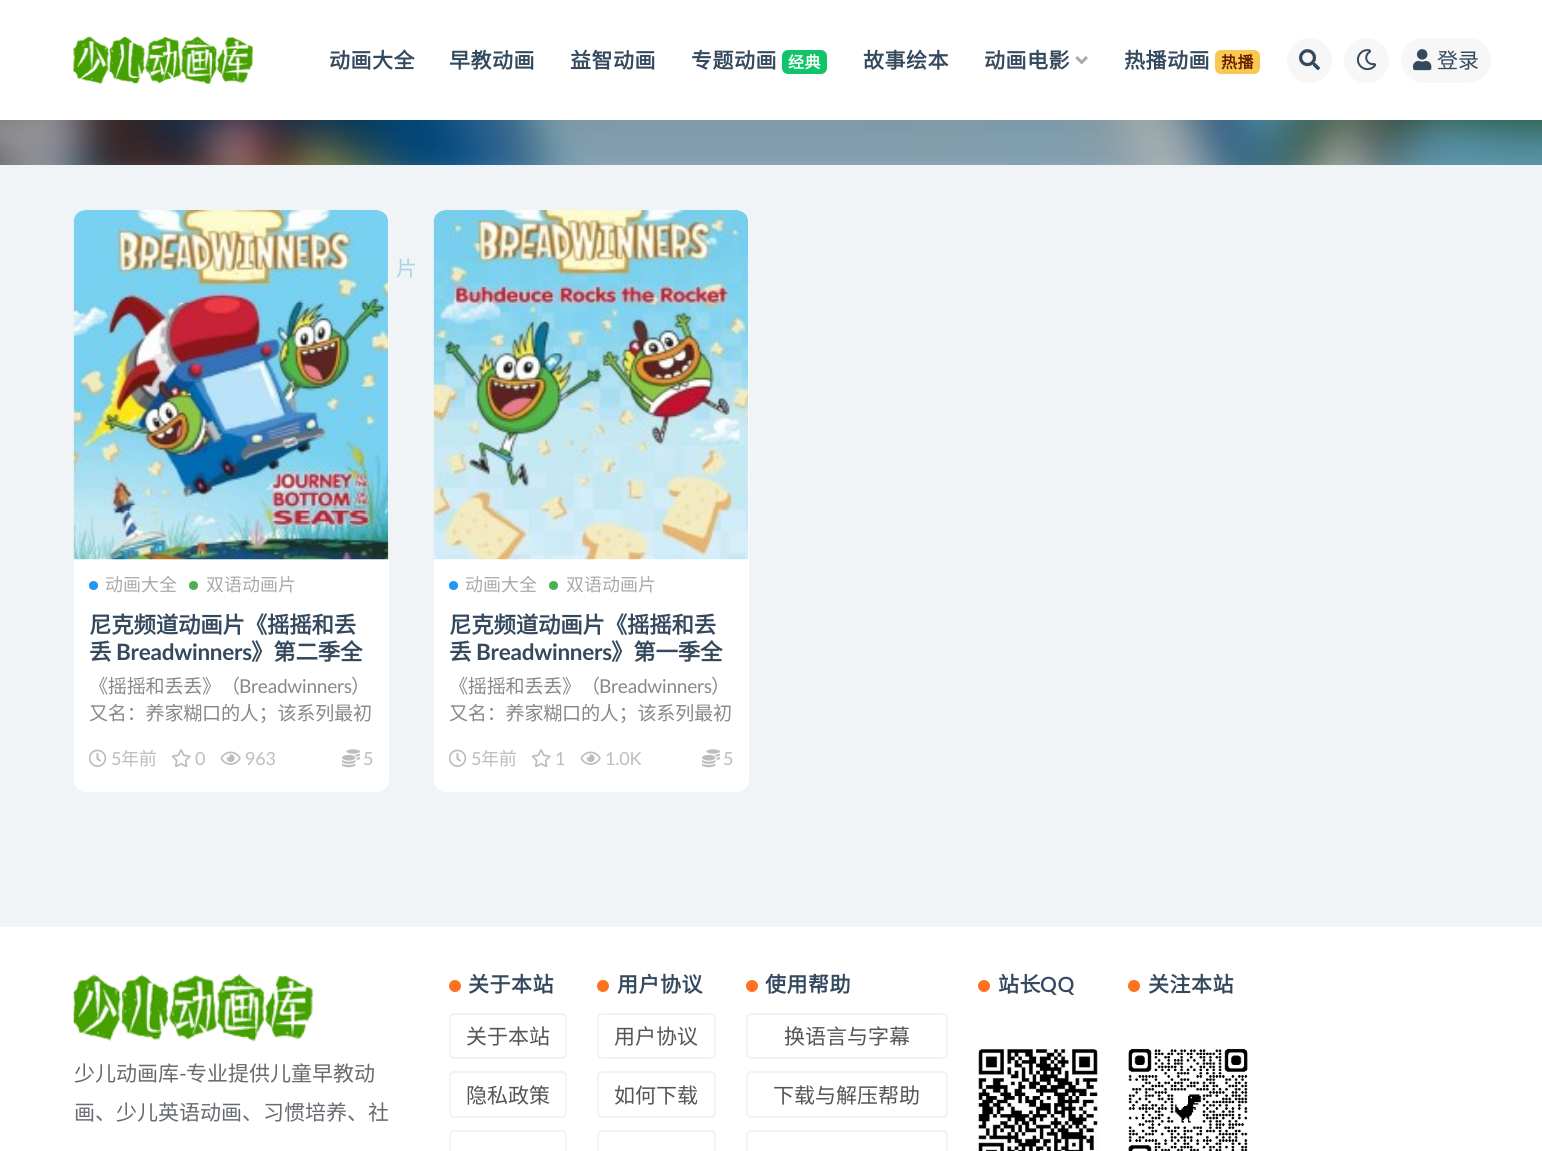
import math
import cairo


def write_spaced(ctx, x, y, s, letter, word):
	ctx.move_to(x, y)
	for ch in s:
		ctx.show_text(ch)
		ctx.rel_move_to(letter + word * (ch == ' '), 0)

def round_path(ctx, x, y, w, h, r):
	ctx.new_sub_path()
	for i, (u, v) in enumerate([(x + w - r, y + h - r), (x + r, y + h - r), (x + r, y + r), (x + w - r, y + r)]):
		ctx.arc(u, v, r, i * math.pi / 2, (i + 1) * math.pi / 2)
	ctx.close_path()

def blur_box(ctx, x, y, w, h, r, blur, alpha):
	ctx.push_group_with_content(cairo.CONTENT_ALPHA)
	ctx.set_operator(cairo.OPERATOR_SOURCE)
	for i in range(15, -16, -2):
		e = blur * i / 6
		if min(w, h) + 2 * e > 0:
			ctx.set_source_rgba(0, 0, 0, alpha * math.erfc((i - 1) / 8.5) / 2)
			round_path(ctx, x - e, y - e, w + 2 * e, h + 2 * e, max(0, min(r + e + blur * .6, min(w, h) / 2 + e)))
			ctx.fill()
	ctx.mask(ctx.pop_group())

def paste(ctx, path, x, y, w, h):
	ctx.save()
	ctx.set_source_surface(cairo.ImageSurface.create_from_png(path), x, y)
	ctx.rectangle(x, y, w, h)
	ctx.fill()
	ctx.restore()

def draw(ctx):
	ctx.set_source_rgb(0.941, 0.957, 0.961)
	ctx.paint()
	paste(ctx, 'media/1.png', 0, 120, 1542, 45)
	ctx.save()
	ctx.rectangle(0, 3, 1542, 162)
	ctx.clip()
	ctx.set_source_rgb(0, 0, 0)
	blur_box(ctx, -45, -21, 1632, 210, 0, 15, 0.3)
	ctx.restore()
	ctx.set_source_rgb(0, 0, 0)
	blur_box(ctx, 0, 0, 1542, 120, 0, 22.5, 0.07)
	ctx.set_source_rgb(1, 1, 1)
	ctx.rectangle(0, 0, 1542, 120)
	ctx.fill()
	paste(ctx, 'media/2.png', 73, 36, 181, 48)
	ctx.select_font_face('Noto Sans CJK SC', cairo.FONT_SLANT_NORMAL, cairo.FONT_WEIGHT_BOLD)
	ctx.set_font_size(21)
	ctx.set_source_rgb(0.204, 0.286, 0.369)
	for x, y, s in [
		(329, 68, '动画大全'),
		(449, 68, '早教动画'),
		(570, 68, '益智动画'),
		(691, 68, '专题动画'),
	]:
		write_spaced(ctx, x, y, s, 0.5, 0)
	ctx.set_source_rgb(0.063, 0.769, 0.412)
	round_path(ctx, 782, 50, 45, 24, 6)
	ctx.fill()
	ctx.set_font_size(16)
	ctx.set_source_rgb(1, 1, 1)
	write_spaced(ctx, 788, 68, '经典', 0.5, 0)
	ctx.set_font_size(21)
	ctx.set_source_rgb(0.204, 0.286, 0.369)
	write_spaced(ctx, 863, 68, '故事绘本', 0.5, 0)
	write_spaced(ctx, 984, 68, '动画电影', 0.5, 0)
	paste(ctx, 'media/3.png', 1075, 56, 13, 8)
	write_spaced(ctx, 1124, 68, '热播动画', 0.5, 0)
	ctx.set_source_rgb(0.976, 0.784, 0.318)
	round_path(ctx, 1215, 50, 45, 24, 6)
	ctx.fill()
	ctx.set_font_size(16)
	ctx.set_source_rgb(0.388, 0.11, 0)
	write_spaced(ctx, 1221, 68, '热播', 0.5, 0)
	ctx.set_source_rgb(0.965, 0.965, 0.965)
	ctx.new_path()
	ctx.arc(1309.5, 60.5, 22.5, 0, 2 * math.pi)
	ctx.fill()
	paste(ctx, 'media/4.png', 1299, 49, 21, 22)
	ctx.arc(1366.5, 60.5, 22.5, 0, 2 * math.pi)
	ctx.fill()
	paste(ctx, 'media/5.png', 1356, 49, 20, 22)
	round_path(ctx, 1401, 38, 90, 45, 22.5)
	ctx.fill()
	paste(ctx, 'media/6.png', 1413, 49, 19, 22)
	ctx.select_font_face('Noto Sans CJK SC')
	ctx.set_font_size(21)
	ctx.set_source_rgb(0.204, 0.286, 0.369)
	ctx.move_to(1437, 68)
	ctx.show_text('登录')
	ctx.set_source_rgb(1, 1, 1)
	round_path(ctx, 74, 210, 315, 582, 12)
	ctx.fill()
	paste(ctx, 'media/7.png', 73, 210, 316, 350)
	ctx.set_source_rgb(0.129, 0.588, 0.953)
	ctx.arc(93.5, 585.5, 4.5, 0, 2 * math.pi)
	ctx.fill()
	ctx.set_font_size(18)
	ctx.set_source_rgb(0.667, 0.667, 0.667)
	ctx.move_to(105, 591)
	ctx.show_text('动画大全')
	ctx.set_source_rgb(0.298, 0.686, 0.314)
	ctx.new_path()
	ctx.arc(193.5, 585.5, 4.5, 0, 2 * math.pi)
	ctx.fill()
	ctx.set_source_rgb(0.667, 0.667, 0.667)
	ctx.move_to(206, 591)
	ctx.show_text('双语动画片')
	ctx.select_font_face('Noto Sans CJK SC', cairo.FONT_SLANT_NORMAL, cairo.FONT_WEIGHT_BOLD)
	ctx.set_font_size(22.5)
	ctx.set_source_rgb(0.204, 0.286, 0.369)
	write_spaced(ctx, 89, 633, '尼克频道动画片《摇摇和丢', -0.25, 0)
	write_spaced(ctx, 89, 660, '丢', -0.25, 0)
	ctx.select_font_face('Lato', cairo.FONT_SLANT_NORMAL, cairo.FONT_WEIGHT_BOLD)
	write_spaced(ctx, 116, 660, 'Breadwinners', -0.25, 0)
	ctx.select_font_face('Noto Sans CJK SC', cairo.FONT_SLANT_NORMAL, cairo.FONT_WEIGHT_BOLD)
	write_spaced(ctx, 251, 660, '》第二季全', -0.25, 0)
	ctx.select_font_face('Noto Sans CJK SC')
	ctx.set_font_size(19.1)
	ctx.set_source_rgb(0.533, 0.533, 0.533)
	write_spaced(ctx, 89, 693, '《摇摇和丢丢》（', -0.25, 0)
	ctx.select_font_face('Lato')
	write_spaced(ctx, 239, 693, 'Breadwinners', -0.25, 0)
	ctx.select_font_face('Noto Sans CJK SC')
	write_spaced(ctx, 351, 693, '）', -0.25, 0)
	write_spaced(ctx, 89, 720, '又名：养家糊口的人；该系列最初', -0.25, 0)
	paste(ctx, 'media/8.png', 89, 749, 18, 18)
	ctx.select_font_face('Lato')
	ctx.set_font_size(18)
	ctx.set_source_rgb(0.741, 0.741, 0.741)
	write_spaced(ctx, 111, 765, '5', -0.25, 0)
	ctx.select_font_face('Noto Sans CJK SC')
	write_spaced(ctx, 121, 765, '年前', -0.25, 0)
	paste(ctx, 'media/9.png', 171, 749, 20, 19)
	ctx.select_font_face('Lato')
	write_spaced(ctx, 195, 765, '0', -0.25, 0)
	paste(ctx, 'media/10.png', 220, 751, 21, 14)
	write_spaced(ctx, 245, 765, '963', -0.25, 0)
	paste(ctx, 'media/11.png', 342, 749, 18, 19)
	write_spaced(ctx, 363, 765, '5', -0.25, 0)
	ctx.set_source_rgb(1, 1, 1)
	round_path(ctx, 434, 210, 315, 582, 12)
	ctx.fill()
	paste(ctx, 'media/12.png', 433, 210, 316, 350)
	ctx.set_source_rgb(0.129, 0.588, 0.953)
	ctx.arc(453.5, 585.5, 4.5, 0, 2 * math.pi)
	ctx.fill()
	ctx.select_font_face('Noto Sans CJK SC')
	ctx.set_source_rgb(0.667, 0.667, 0.667)
	ctx.move_to(465, 591)
	ctx.show_text('动画大全')
	ctx.set_source_rgb(0.298, 0.686, 0.314)
	ctx.new_path()
	ctx.arc(553.5, 585.5, 4.5, 0, 2 * math.pi)
	ctx.fill()
	ctx.set_source_rgb(0.667, 0.667, 0.667)
	ctx.move_to(566, 591)
	ctx.show_text('双语动画片')
	ctx.select_font_face('Noto Sans CJK SC', cairo.FONT_SLANT_NORMAL, cairo.FONT_WEIGHT_BOLD)
	ctx.set_font_size(22.5)
	ctx.set_source_rgb(0.204, 0.286, 0.369)
	write_spaced(ctx, 449, 633, '尼克频道动画片《摇摇和丢', -0.25, 0)
	write_spaced(ctx, 449, 660, '丢', -0.25, 0)
	ctx.select_font_face('Lato', cairo.FONT_SLANT_NORMAL, cairo.FONT_WEIGHT_BOLD)
	write_spaced(ctx, 476, 660, 'Breadwinners', -0.25, 0)
	ctx.select_font_face('Noto Sans CJK SC', cairo.FONT_SLANT_NORMAL, cairo.FONT_WEIGHT_BOLD)
	write_spaced(ctx, 611, 660, '》第一季全', -0.25, 0)
	ctx.select_font_face('Noto Sans CJK SC')
	ctx.set_font_size(19.1)
	ctx.set_source_rgb(0.533, 0.533, 0.533)
	write_spaced(ctx, 449, 693, '《摇摇和丢丢》（', -0.25, 0)
	ctx.select_font_face('Lato')
	write_spaced(ctx, 599, 693, 'Breadwinners', -0.25, 0)
	ctx.select_font_face('Noto Sans CJK SC')
	write_spaced(ctx, 711, 693, '）', -0.25, 0)
	write_spaced(ctx, 449, 720, '又名：养家糊口的人；该系列最初', -0.25, 0)
	paste(ctx, 'media/8.png', 449, 749, 18, 18)
	ctx.select_font_face('Lato')
	ctx.set_font_size(18)
	ctx.set_source_rgb(0.741, 0.741, 0.741)
	write_spaced(ctx, 471, 765, '5', -0.25, 0)
	ctx.select_font_face('Noto Sans CJK SC')
	write_spaced(ctx, 481, 765, '年前', -0.25, 0)
	paste(ctx, 'media/9.png', 531, 749, 20, 19)
	ctx.select_font_face('Lato')
	write_spaced(ctx, 555, 765, '1', -0.25, 0)
	paste(ctx, 'media/10.png', 580, 751, 21, 14)
	write_spaced(ctx, 605, 765, '1.0K', -0.25, 0)
	paste(ctx, 'media/11.png', 702, 749, 18, 19)
	write_spaced(ctx, 723, 765, '5', -0.25, 0)
	ctx.set_source_rgb(1, 1, 1)
	ctx.rectangle(0, 927, 1542, 224)
	ctx.fill()
	paste(ctx, 'media/13.png', 73, 973, 241, 69)
	ctx.select_font_face('Noto Sans CJK SC')
	ctx.set_font_size(21)
	ctx.set_source_rgb(0.404, 0.42, 0.435)
	ctx.move_to(74, 1081)
	ctx.show_text('少儿动画库')
	ctx.select_font_face('Lato')
	ctx.move_to(179, 1081)
	ctx.show_text('-')
	ctx.select_font_face('Noto Sans CJK SC')
	ctx.move_to(186, 1081)
	ctx.show_text('专业提供儿童早教动')
	ctx.move_to(74, 1120)
	ctx.show_text('画、少儿英语动画、习惯培养、社')
	ctx.set_source_rgb(0.992, 0.447, 0.122)
	ctx.new_path()
	ctx.arc(455, 986, 6, 0, 2 * math.pi)
	ctx.fill()
	ctx.select_font_face('Noto Sans CJK SC', cairo.FONT_SLANT_NORMAL, cairo.FONT_WEIGHT_BOLD)
	ctx.set_source_rgb(0.204, 0.286, 0.369)
	write_spaced(ctx, 468, 992, '关于本站', 0.5, 0)
	round_path(ctx, 450, 1014, 116, 44, 4)
	ctx.set_source_rgb(0.941, 0.957, 0.961)
	ctx.stroke()
	ctx.select_font_face('Noto Sans CJK SC')
	ctx.set_source_rgb(0.333, 0.333, 0.333)
	ctx.move_to(466, 1044)
	ctx.show_text('关于本站')
	round_path(ctx, 450, 1072, 116, 45, 4)
	ctx.set_source_rgb(0.941, 0.957, 0.961)
	ctx.stroke()
	ctx.set_source_rgb(0.333, 0.333, 0.333)
	ctx.move_to(466, 1103)
	ctx.show_text('隐私政策')
	round_path(ctx, 450, 1131, 116, 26, 4)
	ctx.set_source_rgb(0.941, 0.957, 0.961)
	ctx.stroke()
	ctx.set_source_rgb(0.992, 0.447, 0.122)
	ctx.arc(603, 986, 6, 0, 2 * math.pi)
	ctx.fill()
	ctx.select_font_face('Noto Sans CJK SC', cairo.FONT_SLANT_NORMAL, cairo.FONT_WEIGHT_BOLD)
	ctx.set_source_rgb(0.204, 0.286, 0.369)
	write_spaced(ctx, 617, 992, '用户协议', 0.5, 0)
	round_path(ctx, 598, 1014, 117, 44, 4)
	ctx.set_source_rgb(0.941, 0.957, 0.961)
	ctx.stroke()
	ctx.select_font_face('Noto Sans CJK SC')
	ctx.set_source_rgb(0.333, 0.333, 0.333)
	ctx.move_to(614, 1044)
	ctx.show_text('用户协议')
	round_path(ctx, 598, 1072, 117, 45, 4)
	ctx.set_source_rgb(0.941, 0.957, 0.961)
	ctx.stroke()
	ctx.set_source_rgb(0.333, 0.333, 0.333)
	ctx.move_to(614, 1103)
	ctx.show_text('如何下载')
	round_path(ctx, 598, 1131, 117, 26, 4)
	ctx.set_source_rgb(0.941, 0.957, 0.961)
	ctx.stroke()
	ctx.set_source_rgb(0.992, 0.447, 0.122)
	ctx.arc(752, 986, 6, 0, 2 * math.pi)
	ctx.fill()
	ctx.select_font_face('Noto Sans CJK SC', cairo.FONT_SLANT_NORMAL, cairo.FONT_WEIGHT_BOLD)
	ctx.set_source_rgb(0.204, 0.286, 0.369)
	write_spaced(ctx, 765, 992, '使用帮助', 0.5, 0)
	round_path(ctx, 747, 1014, 200, 44, 4)
	ctx.set_source_rgb(0.941, 0.957, 0.961)
	ctx.stroke()
	ctx.select_font_face('Noto Sans CJK SC')
	ctx.set_source_rgb(0.333, 0.333, 0.333)
	ctx.move_to(784, 1044)
	ctx.show_text('换语言与字幕')
	round_path(ctx, 747, 1072, 200, 45, 4)
	ctx.set_source_rgb(0.941, 0.957, 0.961)
	ctx.stroke()
	ctx.set_source_rgb(0.333, 0.333, 0.333)
	ctx.move_to(773, 1103)
	ctx.show_text('下载与解压帮助')
	round_path(ctx, 747, 1131, 200, 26, 4)
	ctx.set_source_rgb(0.941, 0.957, 0.961)
	ctx.stroke()
	ctx.set_source_rgb(0.992, 0.447, 0.122)
	ctx.arc(984, 986, 6, 0, 2 * math.pi)
	ctx.fill()
	ctx.select_font_face('Noto Sans CJK SC', cairo.FONT_SLANT_NORMAL, cairo.FONT_WEIGHT_BOLD)
	ctx.set_source_rgb(0.204, 0.286, 0.369)
	write_spaced(ctx, 998, 992, '站长', 0.5, 0)
	ctx.select_font_face('Lato SemiBold')
	write_spaced(ctx, 1040, 992, 'QQ', 0.5, 0)
	paste(ctx, 'media/14.png', 978, 1049, 120, 102)
	ctx.set_source_rgb(0.992, 0.447, 0.122)
	ctx.arc(1134, 986, 6, 0, 2 * math.pi)
	ctx.fill()
	ctx.select_font_face('Noto Sans CJK SC', cairo.FONT_SLANT_NORMAL, cairo.FONT_WEIGHT_BOLD)
	ctx.set_source_rgb(0.204, 0.286, 0.369)
	write_spaced(ctx, 1148, 992, '关注本站', 0.5, 0)
	paste(ctx, 'media/15.png', 1128, 1048, 120, 103)
	ctx.select_font_face('Noto Sans CJK SC')
	ctx.set_source_rgb(0.647, 0.839, 0.886)
	ctx.move_to(396, 276)
	ctx.show_text('片')


surface = cairo.ImageSurface(cairo.FORMAT_RGB24, 1542, 1151)
ctx = cairo.Context(surface)
options = cairo.FontOptions()
options.set_hint_metrics(cairo.HINT_METRICS_OFF)
options.set_hint_style(cairo.HINT_STYLE_NONE)
ctx.set_font_options(options)
ctx.set_miter_limit(4)
draw(ctx)
surface.write_to_png('image.png')
